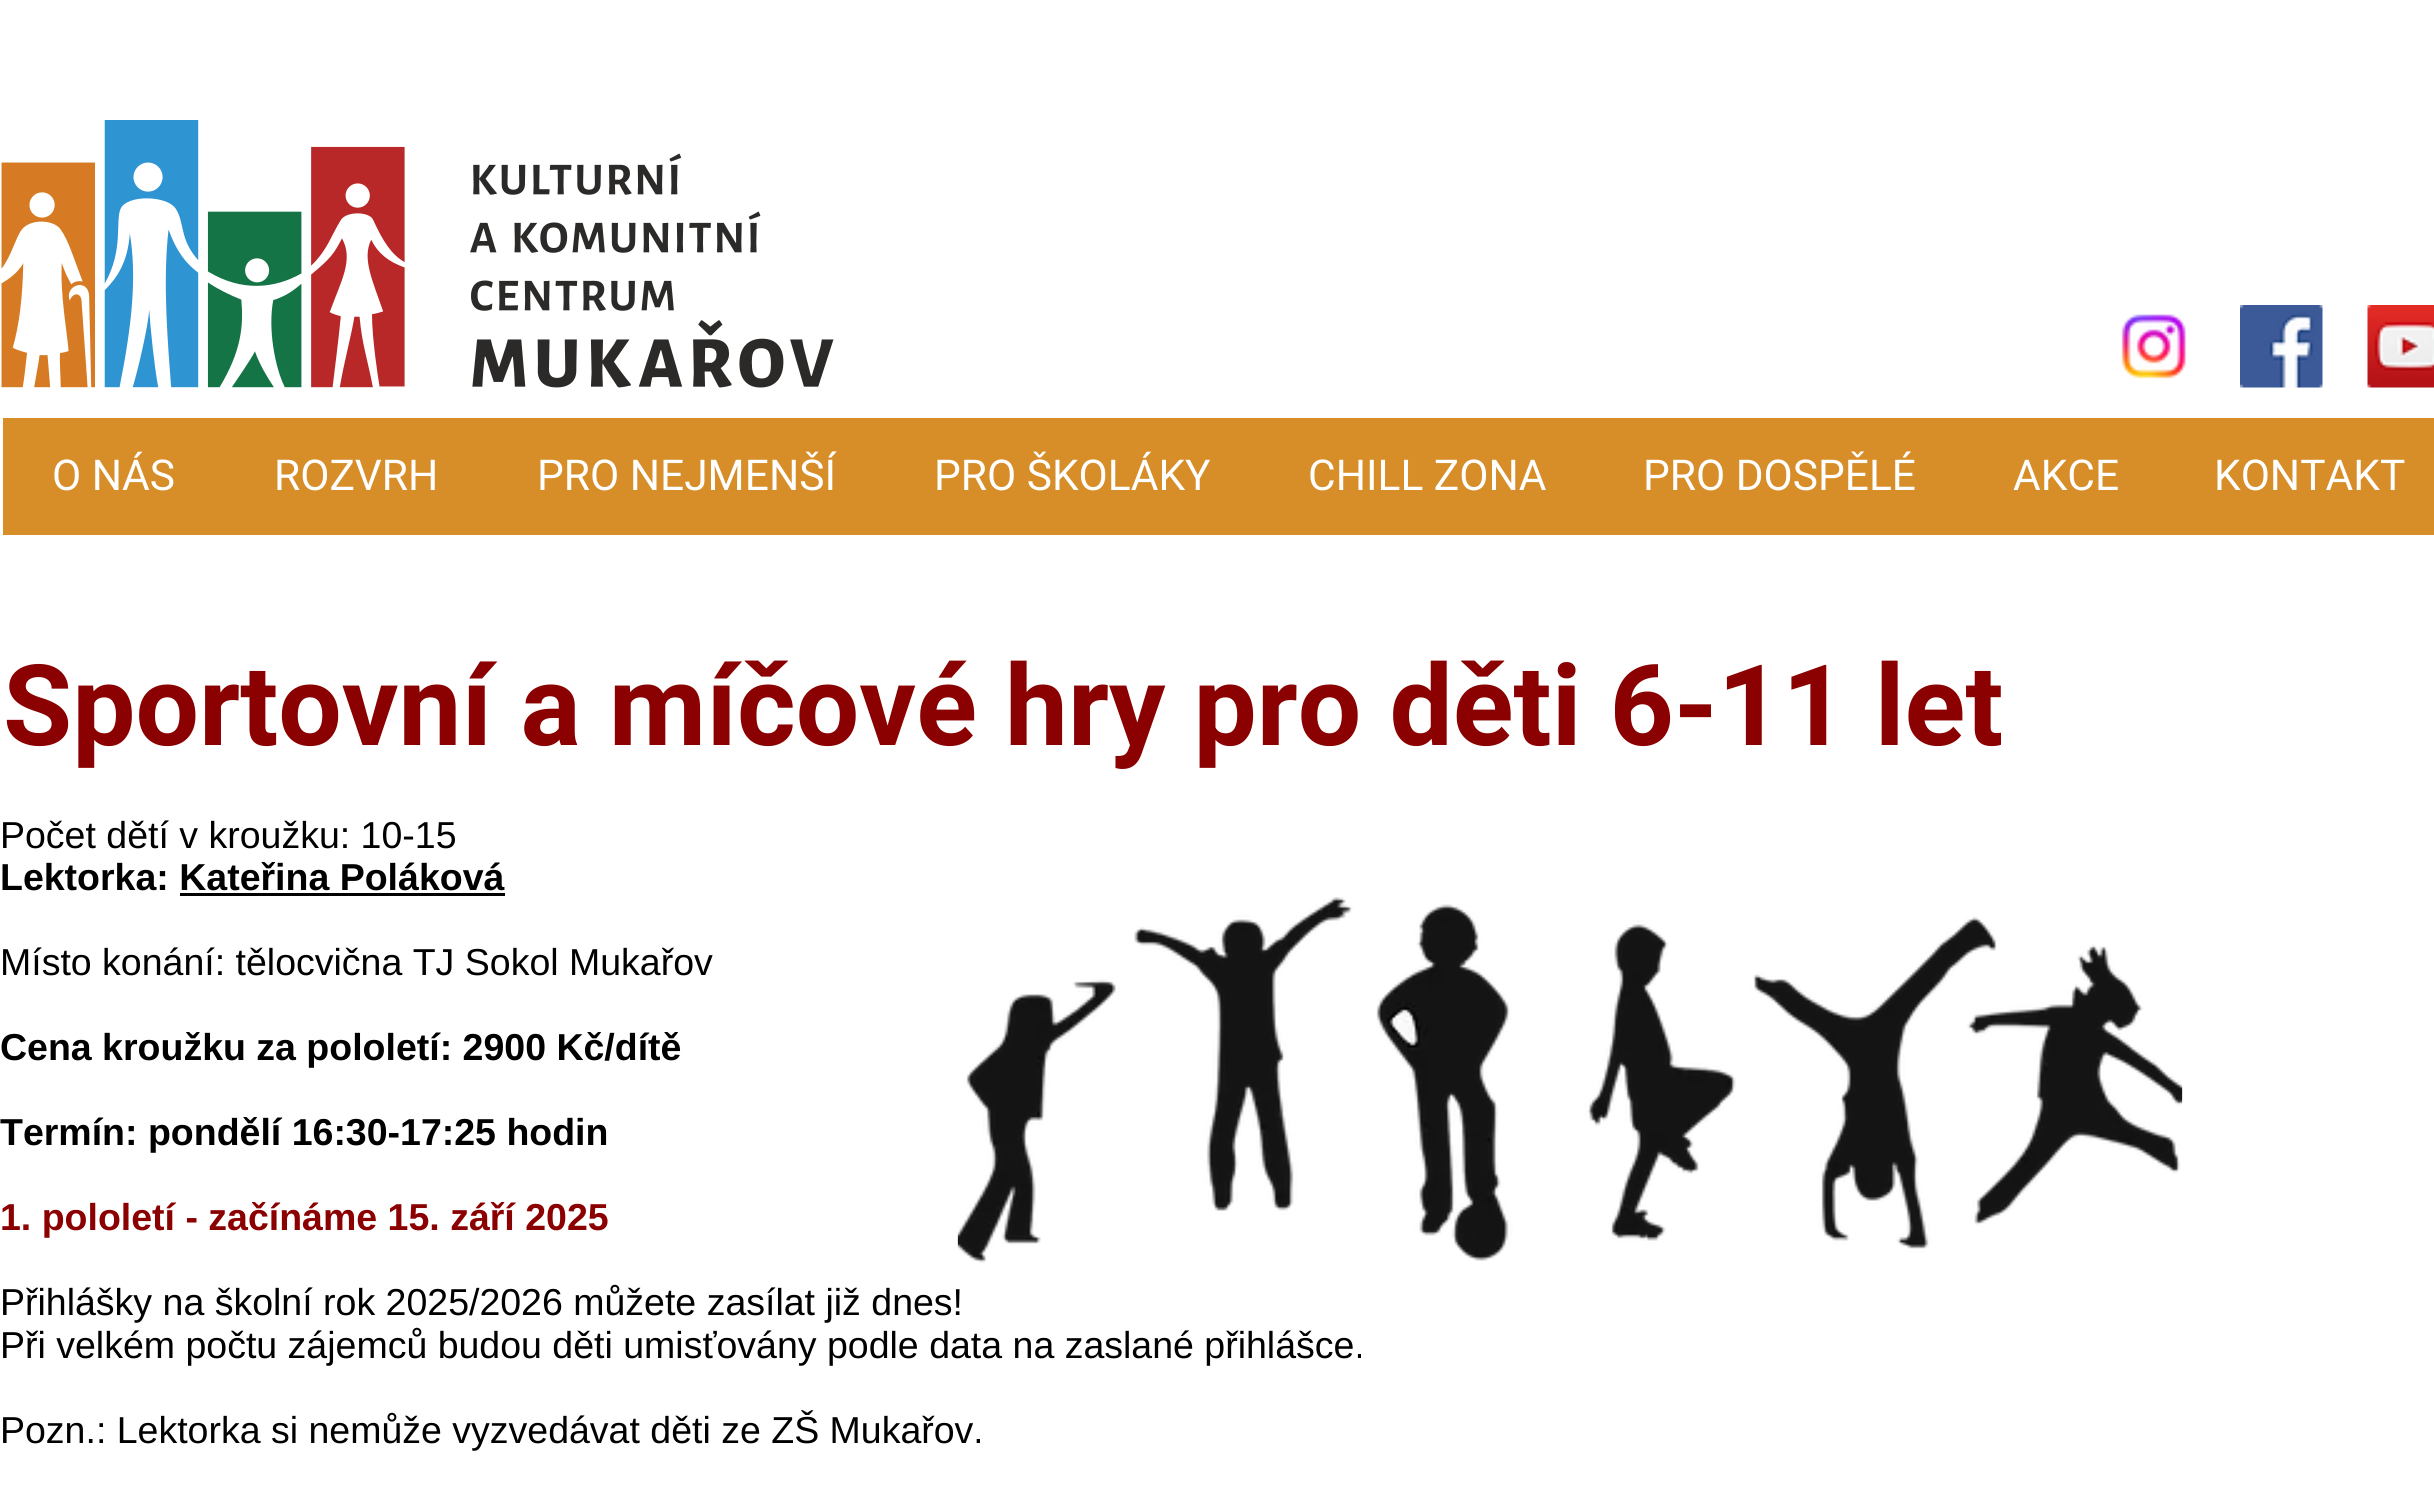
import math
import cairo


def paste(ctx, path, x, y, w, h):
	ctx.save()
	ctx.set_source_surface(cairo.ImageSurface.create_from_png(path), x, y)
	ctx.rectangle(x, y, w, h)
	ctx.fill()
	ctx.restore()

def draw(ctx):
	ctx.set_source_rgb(1, 1, 1)
	ctx.paint()
	paste(ctx, 'media/1.png', 1, 120, 833, 268)
	paste(ctx, 'media/2.png', 2121, 314, 65, 65)
	paste(ctx, 'media/3.png', 2240, 305, 83, 83)
	paste(ctx, 'media/4.png', 2367, 305, 67, 83)
	ctx.set_source_rgb(0.843, 0.553, 0.157)
	ctx.rectangle(3, 418, 2431, 117)
	ctx.fill()
	ctx.select_font_face('Roboto')
	ctx.set_font_size(42.5)
	ctx.set_source_rgb(1, 1, 1)
	for x, y, s in [
		(52, 490, 'O NÁS'),
		(274, 490, 'ROZVRH'),
		(537, 490, 'PRO NEJMENŠÍ'),
		(934, 490, 'PRO ŠKOLÁKY'),
		(1308, 490, 'CHILL ZONA'),
		(1643, 490, 'PRO DOSPĚLÉ'),
		(2013, 490, 'AKCE'),
		(2214, 490, 'KONTAKT'),
	]:
		ctx.move_to(x, y)
		ctx.show_text(s)
	ctx.select_font_face('Roboto', cairo.FONT_SLANT_NORMAL, cairo.FONT_WEIGHT_BOLD)
	ctx.set_font_size(112.5)
	ctx.set_source_rgb(0.545, 0, 0)
	ctx.move_to(3, 745)
	ctx.show_text('Sportovní a míčové hry pro děti 6-11 let')
	ctx.select_font_face('Liberation Sans')
	ctx.set_font_size(37.5)
	ctx.set_source_rgb(0, 0, 0)
	ctx.move_to(0, 848)
	ctx.show_text('Počet dětí v kroužku: 10-15')
	ctx.select_font_face('Liberation Sans', cairo.FONT_SLANT_NORMAL, cairo.FONT_WEIGHT_BOLD)
	ctx.move_to(0, 890)
	ctx.show_text('Lektorka: Kateřina Poláková')
	ctx.rectangle(180, 893, 325, 3)
	ctx.fill()
	ctx.select_font_face('Liberation Sans')
	ctx.move_to(0, 975)
	ctx.show_text('Místo konání: tělocvična TJ Sokol Mukařov')
	ctx.select_font_face('Liberation Sans', cairo.FONT_SLANT_NORMAL, cairo.FONT_WEIGHT_BOLD)
	ctx.move_to(0, 1060)
	ctx.show_text('Cena kroužku za pololetí: 2900 Kč/dítě')
	ctx.move_to(0, 1145)
	ctx.show_text('Termín: pondělí 16:30-17:25 hodin')
	ctx.set_source_rgb(0.545, 0, 0)
	ctx.move_to(0, 1230)
	ctx.show_text('1. pololetí - začínáme 15. září 2025')
	ctx.select_font_face('Liberation Sans')
	ctx.set_source_rgb(0, 0, 0)
	for x, y, s in [
		(0, 1315, 'Přihlášky na školní rok 2025/2026 můžete zasílat již dnes!'),
		(0, 1358, 'Při velkém počtu zájemců budou děti umisťovány podle data na zaslané přihlášce.'),
		(0, 1443, 'Pozn.: Lektorka si nemůže vyzvedávat děti ze ZŠ Mukařov.'),
	]:
		ctx.move_to(x, y)
		ctx.show_text(s)
	paste(ctx, 'media/5.png', 957, 897, 1226, 366)


surface = cairo.ImageSurface(cairo.FORMAT_RGB24, 2434, 1512)
ctx = cairo.Context(surface)
options = cairo.FontOptions()
options.set_hint_metrics(cairo.HINT_METRICS_OFF)
options.set_hint_style(cairo.HINT_STYLE_NONE)
ctx.set_font_options(options)
ctx.set_miter_limit(4)
draw(ctx)
surface.write_to_png('image.png')
